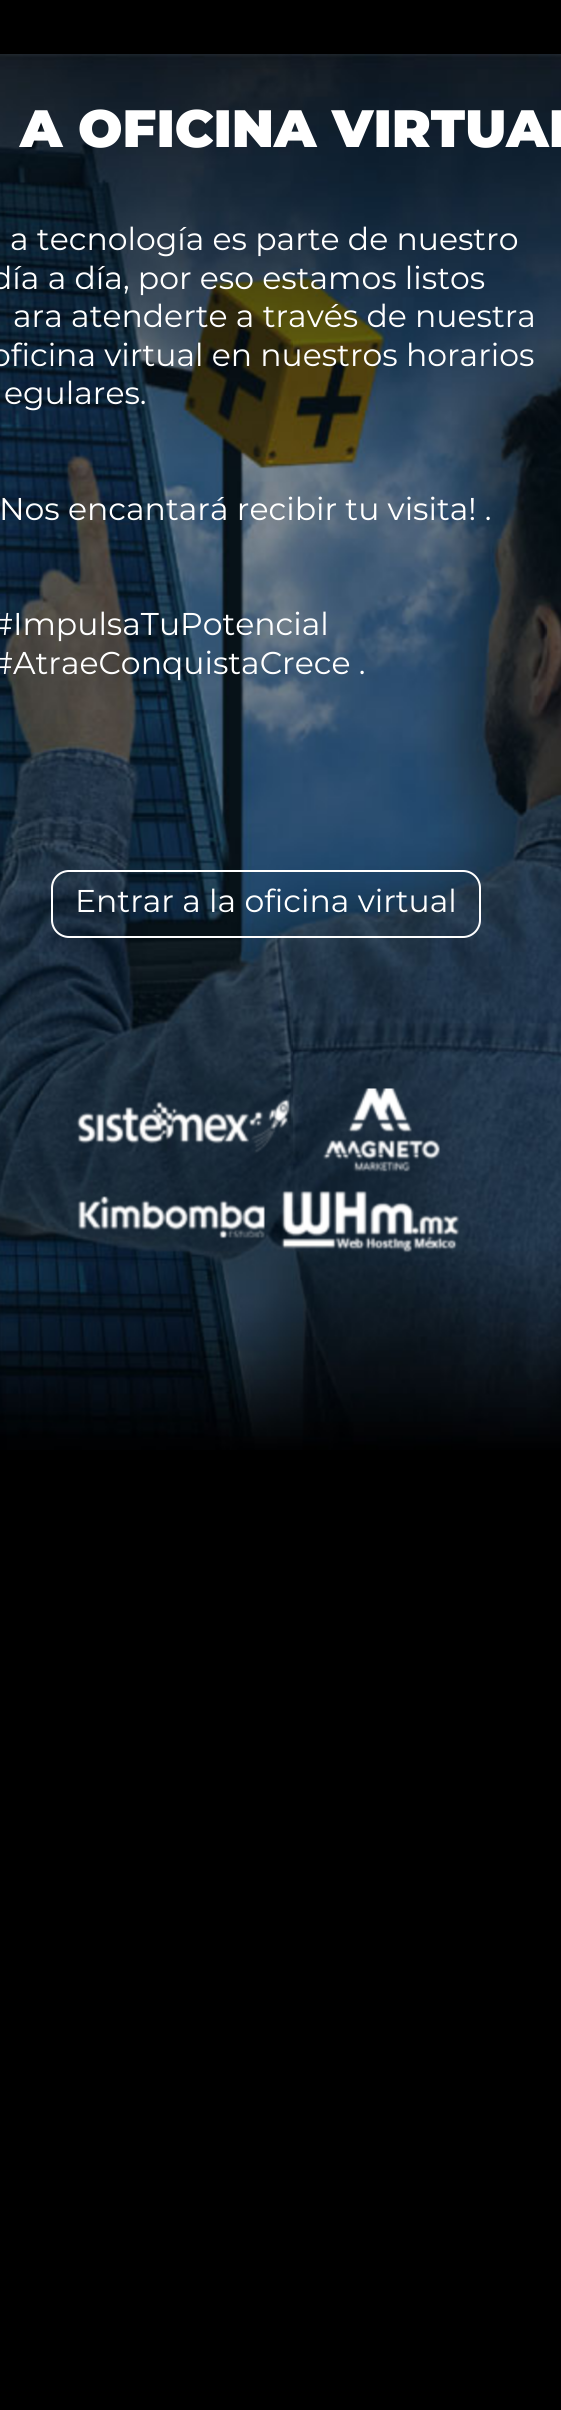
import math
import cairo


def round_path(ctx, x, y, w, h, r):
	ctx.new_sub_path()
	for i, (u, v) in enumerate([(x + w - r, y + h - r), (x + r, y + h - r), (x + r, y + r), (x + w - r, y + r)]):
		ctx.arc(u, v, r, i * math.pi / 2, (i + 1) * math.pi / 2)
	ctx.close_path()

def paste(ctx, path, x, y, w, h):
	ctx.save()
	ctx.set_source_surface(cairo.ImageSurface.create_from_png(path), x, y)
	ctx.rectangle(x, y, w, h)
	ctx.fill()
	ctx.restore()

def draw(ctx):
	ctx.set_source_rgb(0, 0, 0)
	ctx.paint()
	paste(ctx, 'media/1.png', 0, 54, 561, 1396)
	ctx.select_font_face('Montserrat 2 Thin')
	ctx.set_font_size(52.5)
	ctx.set_source_rgb(1, 1, 1)
	ctx.move_to(20, 147)
	ctx.show_text('A OFICINA VIRTUAL')
	ctx.select_font_face('Montserrat Thin')
	ctx.set_font_size(31.5)
	for x, y, s in [
		(10, 250, 'a tecnología es parte de nuestro'),
		(-9, 289, 'día a día, por eso estamos listos'),
		(13, 327, 'ara atenderte a través de nuestra'),
		(-9, 366, 'oficina virtual en nuestros horarios'),
		(4, 404, 'egulares.'),
		(-1, 520, 'Nos encantará recibir tu visita! .'),
		(-9, 635, '#ImpulsaTuPotencial'),
		(-9, 674, '#AtraeConquistaCrece .'),
	]:
		ctx.move_to(x, y)
		ctx.show_text(s)
	round_path(ctx, 52, 871, 428, 66, 17)
	ctx.stroke()
	ctx.move_to(75, 912)
	ctx.show_text('Entrar a la oficina virtual')
	paste(ctx, 'media/2.png', 76, 1088, 384, 165)


surface = cairo.ImageSurface(cairo.FORMAT_RGB24, 561, 2410)
ctx = cairo.Context(surface)
options = cairo.FontOptions()
options.set_hint_metrics(cairo.HINT_METRICS_OFF)
options.set_hint_style(cairo.HINT_STYLE_NONE)
ctx.set_font_options(options)
ctx.set_miter_limit(4)
draw(ctx)
surface.write_to_png('image.png')
